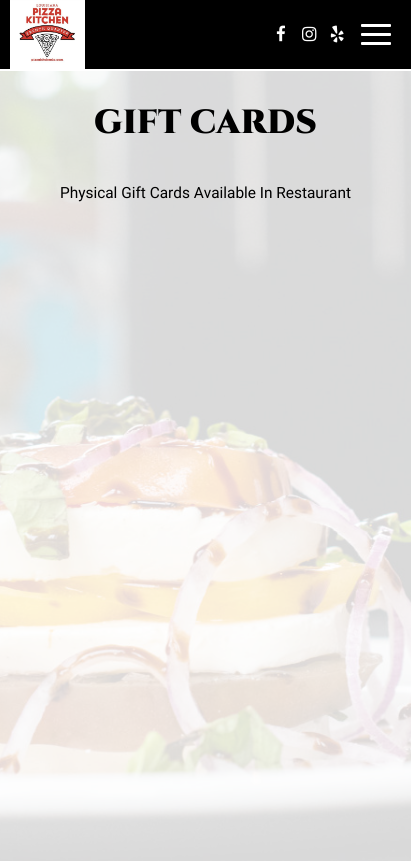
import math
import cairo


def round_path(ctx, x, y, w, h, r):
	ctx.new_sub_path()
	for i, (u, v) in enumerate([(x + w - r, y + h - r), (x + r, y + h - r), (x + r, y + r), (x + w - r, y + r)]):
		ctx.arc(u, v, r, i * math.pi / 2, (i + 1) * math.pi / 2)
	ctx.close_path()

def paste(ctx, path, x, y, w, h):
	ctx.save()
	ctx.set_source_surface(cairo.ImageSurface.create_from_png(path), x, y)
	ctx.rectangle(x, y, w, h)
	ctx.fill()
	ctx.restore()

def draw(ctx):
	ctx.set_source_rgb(1, 1, 1)
	ctx.paint()
	ctx.set_source_rgb(0, 0, 0)
	ctx.rectangle(0, 0, 411, 69)
	ctx.fill()
	paste(ctx, 'media/1.png', 10, 0, 75, 69)
	paste(ctx, 'media/2.png', 276, 25, 9, 17)
	paste(ctx, 'media/3.png', 302, 26, 15, 16)
	paste(ctx, 'media/4.png', 330, 25, 14, 18)
	ctx.set_source_rgb(1, 1, 1)
	round_path(ctx, 361, 24, 30, 3, 1)
	ctx.fill()
	round_path(ctx, 361, 33, 30, 3, 1)
	ctx.fill()
	round_path(ctx, 361, 42, 30, 3, 1)
	ctx.fill()
	paste(ctx, 'media/5.png', 0, 71, 411, 790)
	ctx.select_font_face('Cinzel Black')
	ctx.set_font_size(33.5)
	ctx.set_source_rgb(0, 0, 0)
	ctx.move_to(94, 133)
	ctx.show_text('GIFT CARDS')
	ctx.select_font_face('Roboto')
	ctx.set_font_size(15.4)
	ctx.move_to(60, 198)
	ctx.show_text('Physical Gift Cards Available In Restaurant')


surface = cairo.ImageSurface(cairo.FORMAT_RGB24, 411, 861)
ctx = cairo.Context(surface)
options = cairo.FontOptions()
options.set_hint_metrics(cairo.HINT_METRICS_OFF)
options.set_hint_style(cairo.HINT_STYLE_NONE)
ctx.set_font_options(options)
ctx.set_miter_limit(4)
draw(ctx)
surface.write_to_png('image.png')
